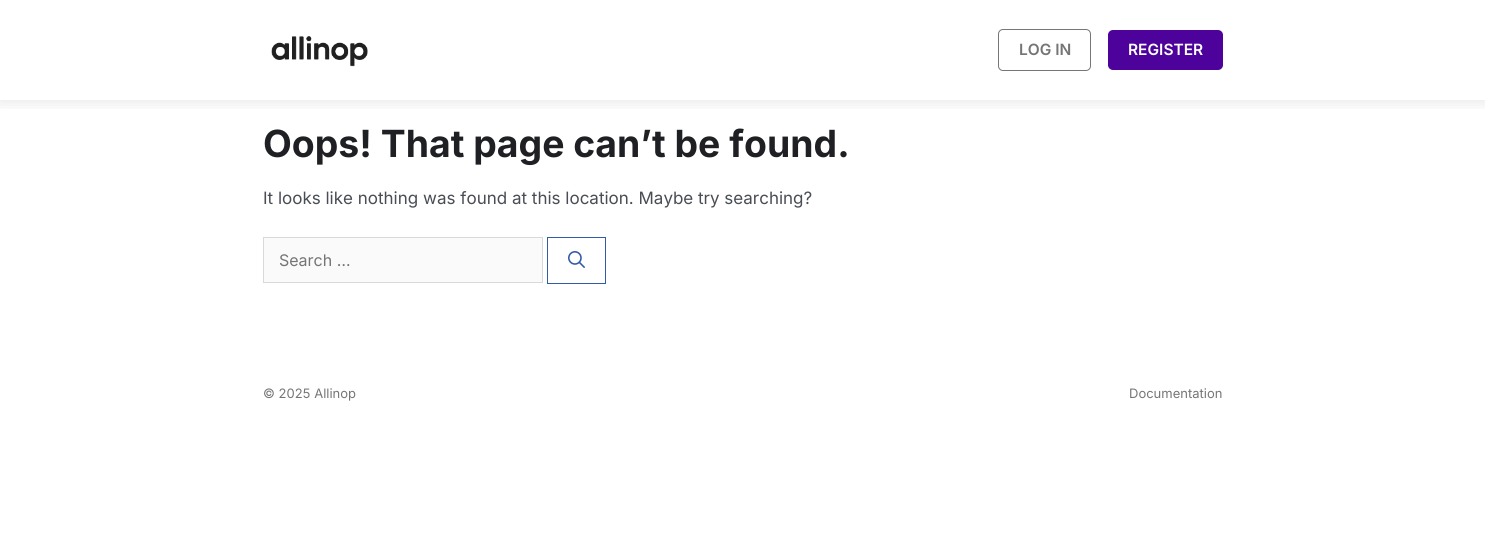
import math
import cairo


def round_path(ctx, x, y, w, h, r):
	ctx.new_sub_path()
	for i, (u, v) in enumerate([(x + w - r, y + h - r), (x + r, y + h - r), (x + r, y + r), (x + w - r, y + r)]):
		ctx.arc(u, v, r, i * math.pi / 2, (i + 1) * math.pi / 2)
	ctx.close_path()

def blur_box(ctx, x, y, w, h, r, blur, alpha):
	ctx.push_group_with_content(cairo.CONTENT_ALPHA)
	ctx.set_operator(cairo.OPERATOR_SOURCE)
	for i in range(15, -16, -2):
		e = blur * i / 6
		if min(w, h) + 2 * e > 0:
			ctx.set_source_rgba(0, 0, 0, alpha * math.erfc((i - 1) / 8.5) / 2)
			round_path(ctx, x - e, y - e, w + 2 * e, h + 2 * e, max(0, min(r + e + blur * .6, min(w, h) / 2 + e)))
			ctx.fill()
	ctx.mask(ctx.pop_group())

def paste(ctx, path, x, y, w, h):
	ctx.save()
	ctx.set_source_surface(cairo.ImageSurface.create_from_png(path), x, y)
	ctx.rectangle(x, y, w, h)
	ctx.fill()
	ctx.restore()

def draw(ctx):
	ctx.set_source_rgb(1, 1, 1)
	ctx.paint()
	ctx.save()
	ctx.rectangle(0, 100, 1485, 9)
	ctx.clip()
	ctx.set_source_rgb(0, 0, 0)
	blur_box(ctx, -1, 0, 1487, 102, 0, 8, 0.1)
	ctx.restore()
	paste(ctx, 'media/1.png', 271, 36, 97, 31)
	round_path(ctx, 998.5, 29.5, 92, 41, 4.5)
	ctx.set_source_rgb(0.463, 0.463, 0.463)
	ctx.set_line_width(1)
	ctx.stroke()
	ctx.select_font_face('Inter SemiBold')
	ctx.set_font_size(15.5)
	ctx.set_source_rgb(0.459, 0.459, 0.459)
	ctx.move_to(1019, 55)
	ctx.show_text('LOG IN')
	ctx.set_source_rgb(0.298, 0.008, 0.608)
	round_path(ctx, 1108, 30, 115, 40, 5)
	ctx.fill()
	ctx.set_source_rgb(1, 1, 1)
	ctx.move_to(1128, 55)
	ctx.show_text('REGISTER')
	ctx.select_font_face('Inter', cairo.FONT_SLANT_NORMAL, cairo.FONT_WEIGHT_BOLD)
	ctx.set_font_size(37.4)
	ctx.set_source_rgb(0.122, 0.125, 0.141)
	ctx.move_to(263, 157)
	ctx.show_text('Oops! That page can’t be found.')
	ctx.select_font_face('Inter')
	ctx.set_font_size(17)
	ctx.set_source_rgb(0.286, 0.302, 0.329)
	ctx.move_to(263, 204)
	ctx.show_text('It looks like nothing was found at this location. Maybe try searching?')
	ctx.set_source_rgb(0.98, 0.98, 0.98)
	ctx.rectangle(263.5, 237.5, 279, 45)
	ctx.fill_preserve()
	ctx.set_source_rgb(0.851, 0.851, 0.851)
	ctx.stroke()
	ctx.set_font_size(16)
	ctx.set_source_rgb(0.459, 0.459, 0.459)
	ctx.move_to(279, 266)
	ctx.show_text('Search …')
	ctx.rectangle(547.5, 237.5, 58, 46)
	ctx.set_source_rgb(0.2, 0.353, 0.659)
	ctx.stroke()
	paste(ctx, 'media/2.png', 568, 251, 17, 17)
	ctx.set_font_size(13)
	ctx.set_source_rgb(0.459, 0.459, 0.459)
	ctx.move_to(263, 398)
	ctx.show_text('© 2025 Allinop')
	ctx.move_to(1129, 398)
	ctx.show_text('Documentation')


surface = cairo.ImageSurface(cairo.FORMAT_RGB24, 1485, 537)
ctx = cairo.Context(surface)
options = cairo.FontOptions()
options.set_hint_metrics(cairo.HINT_METRICS_OFF)
options.set_hint_style(cairo.HINT_STYLE_NONE)
ctx.set_font_options(options)
ctx.set_miter_limit(4)
draw(ctx)
surface.write_to_png('image.png')
